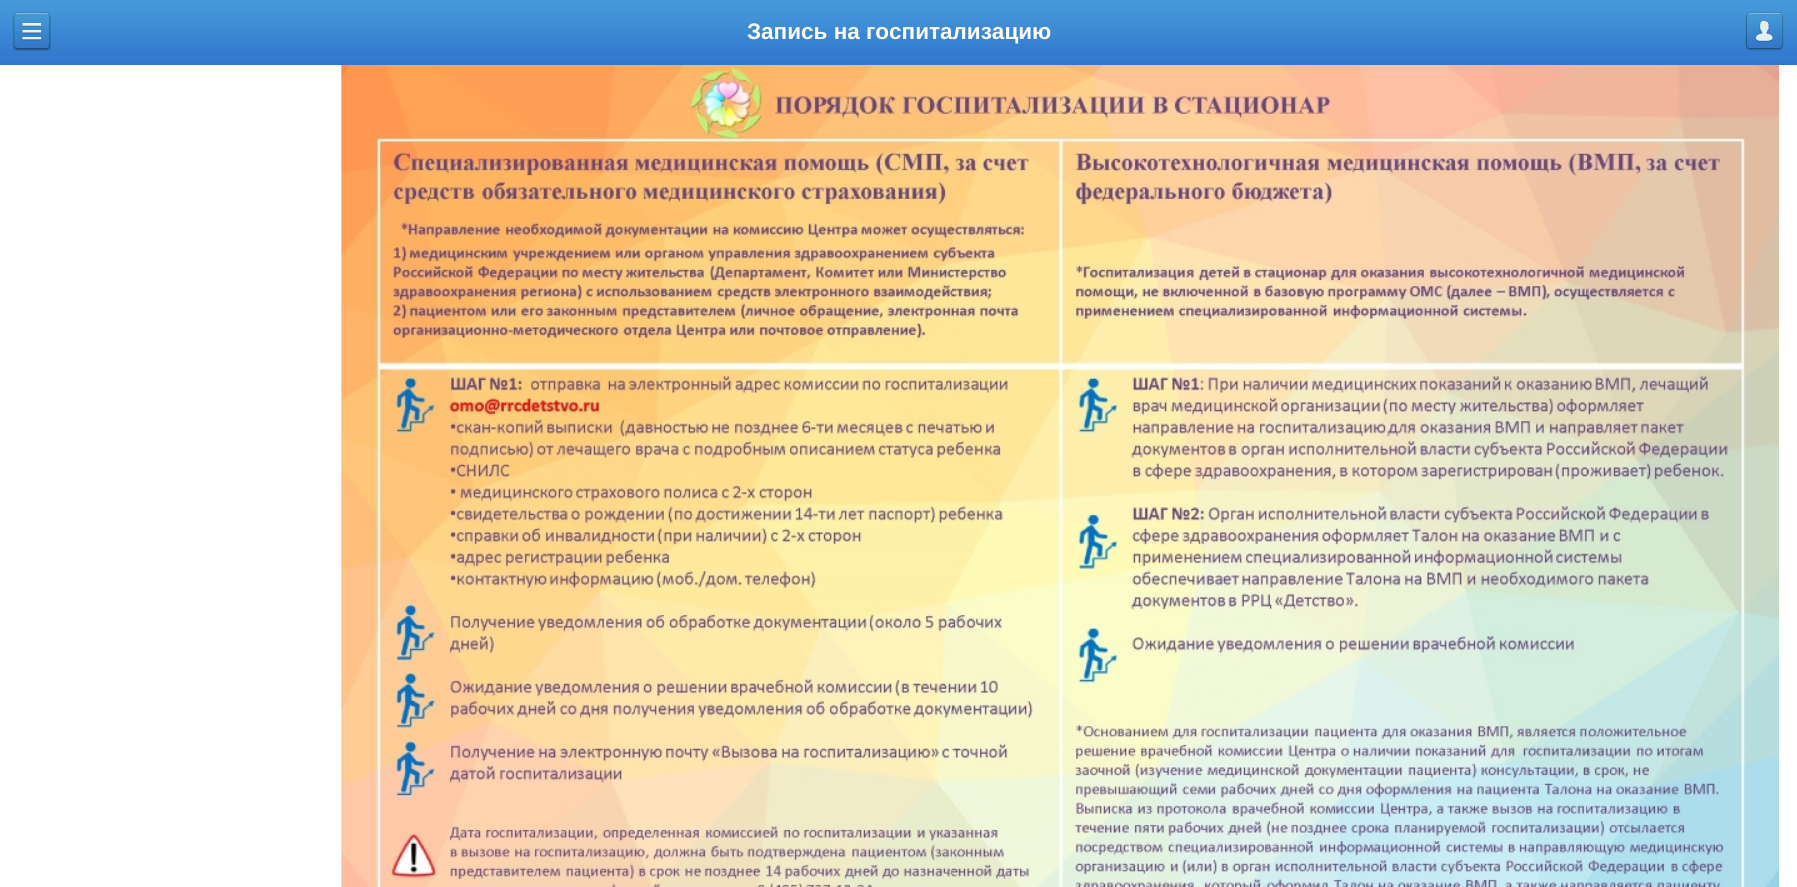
import math
import cairo


def paste(ctx, path, x, y, w, h):
	ctx.save()
	ctx.set_source_surface(cairo.ImageSurface.create_from_png(path), x, y)
	ctx.rectangle(x, y, w, h)
	ctx.fill()
	ctx.restore()

def draw(ctx):
	ctx.set_source_rgb(1, 1, 1)
	ctx.paint()
	gradient = cairo.LinearGradient(899, 0, 899, 65)
	gradient.add_color_stop_rgba(0, 0.267, 0.604, 0.855, 1)
	gradient.add_color_stop_rgba(0.2, 0.259, 0.584, 0.847, 1)
	gradient.add_color_stop_rgba(0.79, 0.208, 0.486, 0.812, 1)
	gradient.add_color_stop_rgba(1, 0.196, 0.467, 0.804, 1)
	ctx.set_source(gradient)
	ctx.rectangle(0, 0, 1797, 65)
	ctx.fill()
	paste(ctx, 'media/1.png', 12, 12, 39, 39)
	ctx.select_font_face('Liberation Sans', cairo.FONT_SLANT_NORMAL, cairo.FONT_WEIGHT_BOLD)
	ctx.set_font_size(22.5)
	ctx.set_source_rgb(1, 1, 1)
	ctx.move_to(747, 39)
	ctx.show_text('Запись на госпитализацию')
	paste(ctx, 'media/2.png', 1745, 12, 39, 39)
	paste(ctx, 'media/3.png', 341, 65, 1438, 822)


surface = cairo.ImageSurface(cairo.FORMAT_RGB24, 1797, 887)
ctx = cairo.Context(surface)
options = cairo.FontOptions()
options.set_hint_metrics(cairo.HINT_METRICS_OFF)
options.set_hint_style(cairo.HINT_STYLE_NONE)
ctx.set_font_options(options)
ctx.set_miter_limit(4)
draw(ctx)
surface.write_to_png('image.png')
